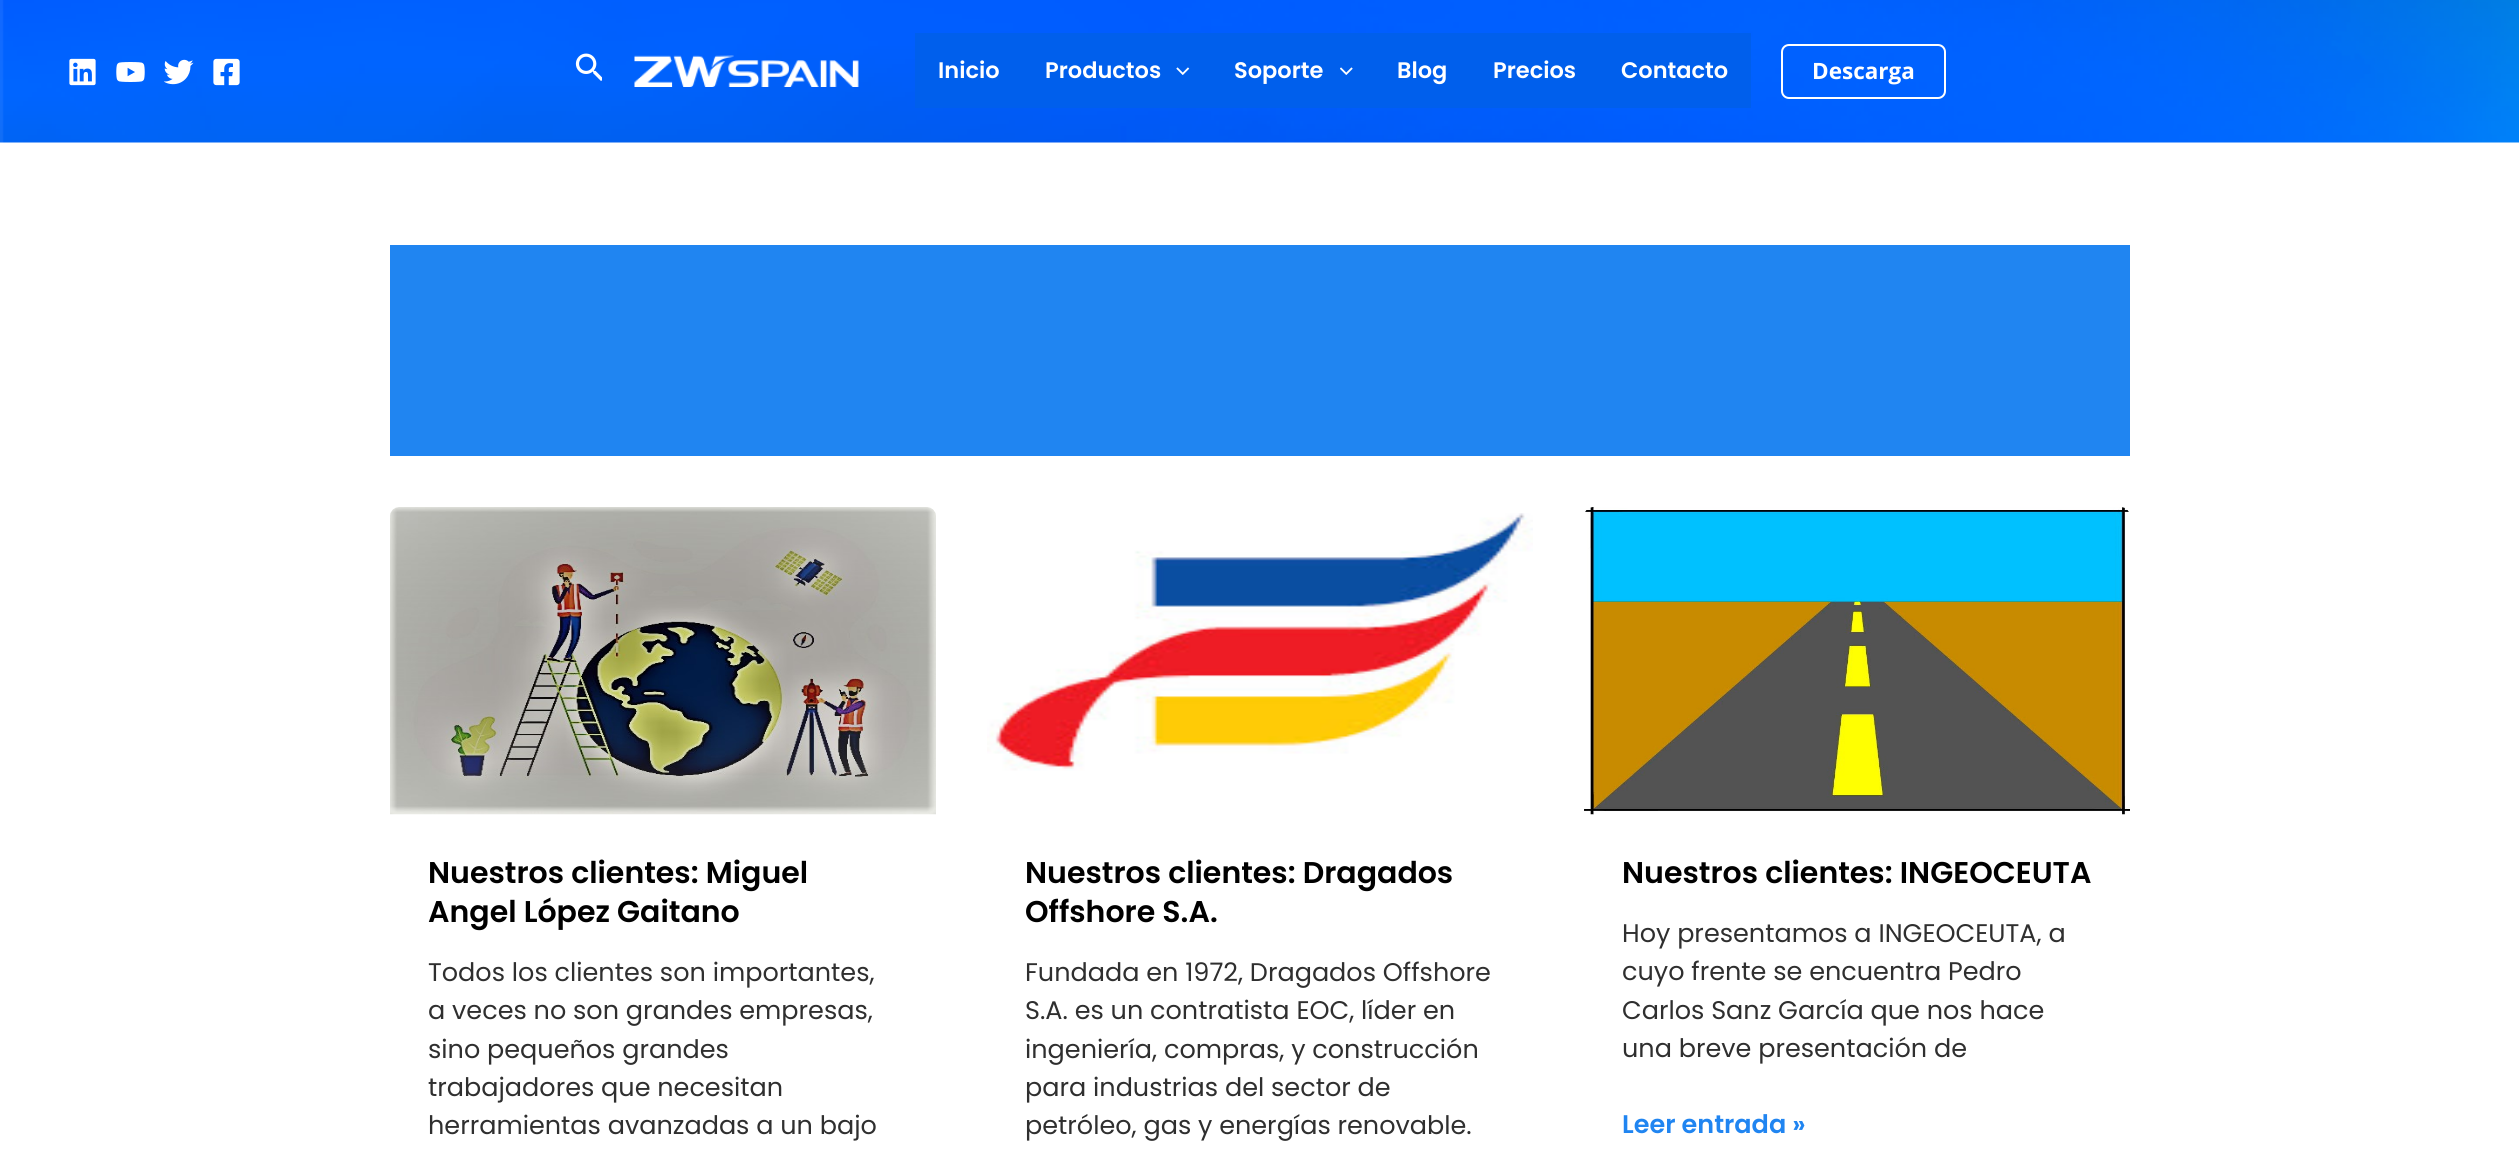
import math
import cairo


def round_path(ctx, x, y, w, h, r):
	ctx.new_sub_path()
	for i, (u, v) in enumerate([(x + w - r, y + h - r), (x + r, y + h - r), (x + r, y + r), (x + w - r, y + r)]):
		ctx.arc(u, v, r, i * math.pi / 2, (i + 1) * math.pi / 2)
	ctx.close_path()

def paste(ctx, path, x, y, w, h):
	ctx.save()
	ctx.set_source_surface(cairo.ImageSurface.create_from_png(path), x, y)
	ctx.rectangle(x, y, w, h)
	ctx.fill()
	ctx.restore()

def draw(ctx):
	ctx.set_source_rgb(1, 1, 1)
	ctx.paint()
	paste(ctx, 'media/1.png', 0, 0, 2519, 143)
	paste(ctx, 'media/2.png', 69, 58, 27, 28)
	paste(ctx, 'media/3.png', 116, 62, 29, 20)
	paste(ctx, 'media/4.png', 164, 59, 30, 26)
	paste(ctx, 'media/5.png', 213, 58, 27, 28)
	paste(ctx, 'media/6.png', 575, 53, 27, 28)
	paste(ctx, 'media/7.png', 634, 55, 225, 32)
	ctx.set_source_rgb(0, 0.373, 0.925)
	ctx.rectangle(915, 33, 836, 75)
	ctx.fill()
	ctx.select_font_face('Poppins SemiBold')
	ctx.set_font_size(22.5)
	ctx.set_source_rgb(1, 1, 1)
	ctx.move_to(938, 78)
	ctx.show_text('Inicio')
	ctx.move_to(1045, 78)
	ctx.show_text('Productos')
	paste(ctx, 'media/8.png', 1176, 67, 14, 8)
	ctx.move_to(1234, 78)
	ctx.show_text('Soporte')
	paste(ctx, 'media/9.png', 1340, 67, 13, 8)
	for x, y, s in [
		(1397, 78, 'Blog'),
		(1493, 78, 'Precios'),
		(1621, 78, 'Contacto'),
	]:
		ctx.move_to(x, y)
		ctx.show_text(s)
	round_path(ctx, 1782, 45, 163, 53, 7)
	ctx.stroke()
	ctx.select_font_face('Open Sans', cairo.FONT_SLANT_NORMAL, cairo.FONT_WEIGHT_BOLD)
	ctx.move_to(1812, 79)
	ctx.show_text('Descarga')
	ctx.set_source_rgb(0.125, 0.522, 0.945)
	ctx.rectangle(390, 245, 1740, 211)
	ctx.fill()
	paste(ctx, 'media/10.png', 390, 507, 546, 308)
	ctx.select_font_face('Poppins SemiBold')
	ctx.set_font_size(30)
	ctx.set_source_rgb(0, 0, 0)
	ctx.move_to(428, 883)
	ctx.show_text('Nuestros clientes: Miguel')
	ctx.move_to(428, 922)
	ctx.show_text('Angel López Gaitano')
	ctx.select_font_face('Poppins')
	ctx.set_font_size(25.5)
	ctx.set_source_rgb(0.184, 0.184, 0.184)
	for x, y, s in [
		(428, 981, 'Todos los clientes son importantes,'),
		(428, 1019, 'a veces no son grandes empresas,'),
		(428, 1058, 'sino pequeños grandes'),
		(428, 1096, 'trabajadores que necesitan'),
		(428, 1134, 'herramientas avanzadas a un bajo'),
	]:
		ctx.move_to(x, y)
		ctx.show_text(s)
	paste(ctx, 'media/11.png', 987, 513, 546, 258)
	ctx.select_font_face('Poppins SemiBold')
	ctx.set_font_size(30)
	ctx.set_source_rgb(0, 0, 0)
	ctx.move_to(1025, 883)
	ctx.show_text('Nuestros clientes: Dragados')
	ctx.move_to(1025, 922)
	ctx.show_text('Offshore S.A.')
	ctx.select_font_face('Poppins')
	ctx.set_font_size(25.5)
	ctx.set_source_rgb(0.184, 0.184, 0.184)
	for x, y, s in [
		(1025, 981, 'Fundada en 1972, Dragados Offshore'),
		(1025, 1019, 'S.A. es un contratista EOC, líder en'),
		(1025, 1058, 'ingeniería, compras, y construcción'),
		(1025, 1096, 'para industrias del sector de'),
		(1025, 1134, 'petróleo, gas y energías renovable.'),
	]:
		ctx.move_to(x, y)
		ctx.show_text(s)
	paste(ctx, 'media/12.png', 1584, 507, 546, 308)
	ctx.select_font_face('Poppins SemiBold')
	ctx.set_font_size(30)
	ctx.set_source_rgb(0, 0, 0)
	ctx.move_to(1622, 883)
	ctx.show_text('Nuestros clientes: INGEOCEUTA')
	ctx.select_font_face('Poppins')
	ctx.set_font_size(25.5)
	ctx.set_source_rgb(0.184, 0.184, 0.184)
	for x, y, s in [
		(1622, 942, 'Hoy presentamos a INGEOCEUTA, a'),
		(1622, 980, 'cuyo frente se encuentra Pedro'),
		(1622, 1019, 'Carlos Sanz García que nos hace'),
		(1622, 1057, 'una breve presentación de'),
	]:
		ctx.move_to(x, y)
		ctx.show_text(s)
	ctx.select_font_face('Poppins SemiBold')
	ctx.set_source_rgb(0.125, 0.522, 0.945)
	ctx.move_to(1622, 1133)
	ctx.show_text('Leer entrada »')


surface = cairo.ImageSurface(cairo.FORMAT_RGB24, 2519, 1161)
ctx = cairo.Context(surface)
options = cairo.FontOptions()
options.set_hint_metrics(cairo.HINT_METRICS_OFF)
options.set_hint_style(cairo.HINT_STYLE_NONE)
ctx.set_font_options(options)
ctx.set_miter_limit(4)
draw(ctx)
surface.write_to_png('image.png')
